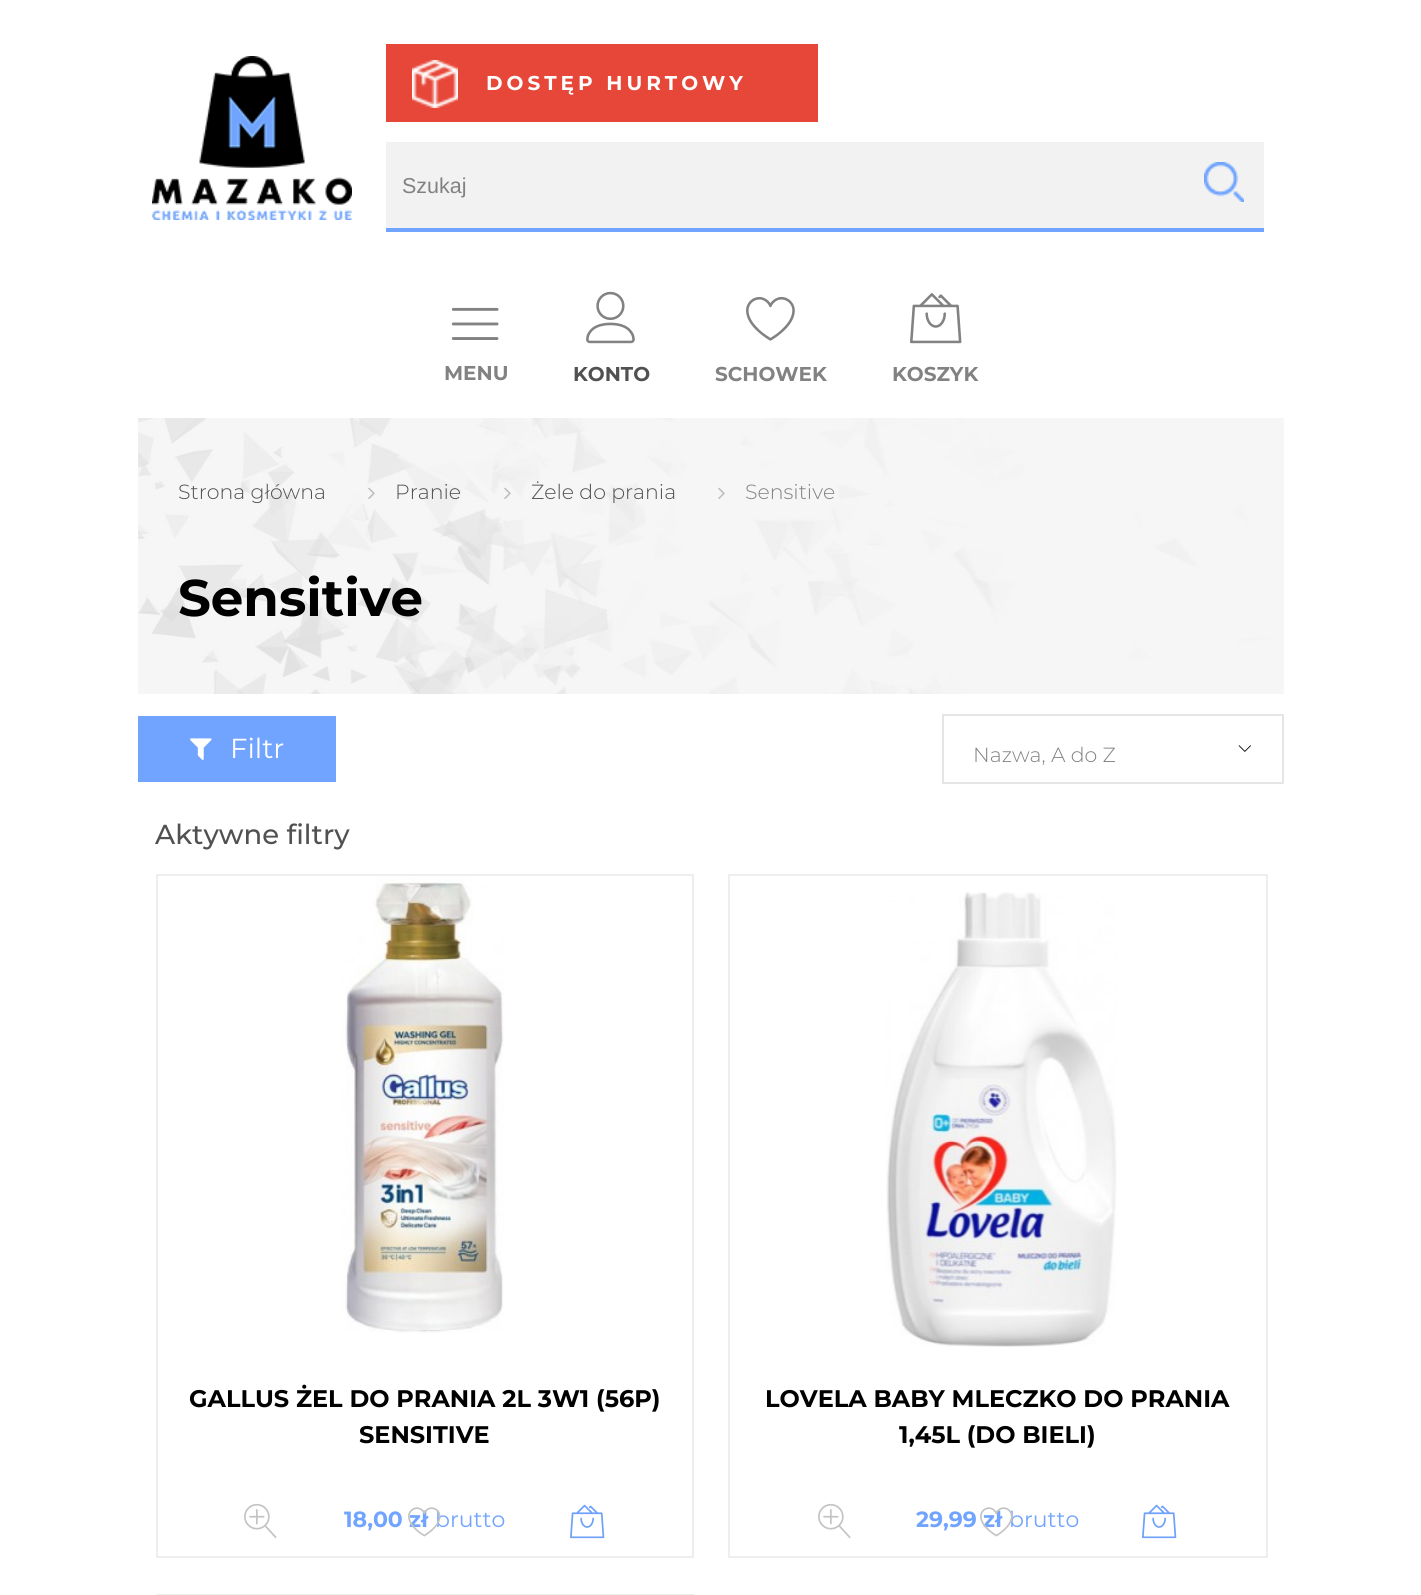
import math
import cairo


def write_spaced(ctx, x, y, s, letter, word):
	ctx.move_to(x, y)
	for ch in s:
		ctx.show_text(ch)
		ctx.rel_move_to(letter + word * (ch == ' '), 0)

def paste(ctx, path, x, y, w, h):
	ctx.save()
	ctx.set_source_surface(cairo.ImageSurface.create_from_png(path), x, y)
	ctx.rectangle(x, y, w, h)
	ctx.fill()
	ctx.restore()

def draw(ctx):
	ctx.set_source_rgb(1, 1, 1)
	ctx.paint()
	paste(ctx, 'media/1.png', 152, 56, 200, 164)
	ctx.set_source_rgb(0.906, 0.278, 0.224)
	ctx.rectangle(386, 44, 432, 78)
	ctx.fill()
	paste(ctx, 'media/2.png', 412, 60, 46, 48)
	ctx.select_font_face('Montserrat', cairo.FONT_SLANT_NORMAL, cairo.FONT_WEIGHT_BOLD)
	ctx.set_font_size(20)
	ctx.set_source_rgb(1, 1, 1)
	write_spaced(ctx, 486, 90, 'DOSTĘP HURTOWY', 4, 0)
	ctx.set_source_rgb(0.949, 0.949, 0.949)
	ctx.rectangle(386, 142, 878, 86)
	ctx.fill()
	ctx.set_source_rgb(0.443, 0.643, 0.996)
	ctx.rectangle(386, 228, 878, 4)
	ctx.fill()
	ctx.select_font_face('Liberation Sans')
	ctx.set_font_size(21.5)
	ctx.set_source_rgb(0.51, 0.51, 0.51)
	ctx.move_to(402, 193)
	ctx.show_text('Szukaj')
	paste(ctx, 'media/3.png', 1204, 162, 40, 40)
	paste(ctx, 'media/4.png', 451, 307, 48, 33)
	ctx.select_font_face('Montserrat', cairo.FONT_SLANT_NORMAL, cairo.FONT_WEIGHT_BOLD)
	ctx.set_font_size(20)
	ctx.move_to(444, 380)
	ctx.show_text('MENU')
	paste(ctx, 'media/5.png', 586, 291, 49, 53)
	ctx.set_source_rgb(0.318, 0.318, 0.318)
	ctx.move_to(573, 381)
	ctx.show_text('KONTO')
	paste(ctx, 'media/6.png', 746, 296, 49, 45)
	ctx.set_source_rgb(0.51, 0.51, 0.51)
	ctx.move_to(715, 381)
	ctx.show_text('SCHOWEK')
	paste(ctx, 'media/7.png', 910, 293, 52, 51)
	ctx.move_to(892, 381)
	ctx.show_text('KOSZYK')
	paste(ctx, 'media/8.png', 138, 418, 1146, 276)
	ctx.select_font_face('Montserrat Light')
	ctx.set_font_size(20.5)
	ctx.set_source_rgb(0.318, 0.318, 0.318)
	ctx.move_to(178, 499)
	ctx.show_text('Strona główna')
	paste(ctx, 'media/9.png', 368, 487, 7, 12)
	ctx.move_to(395, 499)
	ctx.show_text('Pranie')
	paste(ctx, 'media/10.png', 504, 487, 7, 12)
	ctx.move_to(531, 499)
	ctx.show_text('Żele do prania')
	paste(ctx, 'media/11.png', 718, 487, 7, 12)
	ctx.set_source_rgb(0.51, 0.51, 0.51)
	ctx.move_to(745, 499)
	ctx.show_text('Sensitive')
	ctx.select_font_face('Montserrat', cairo.FONT_SLANT_NORMAL, cairo.FONT_WEIGHT_BOLD)
	ctx.set_font_size(51.5)
	ctx.set_source_rgb(0, 0, 0)
	ctx.move_to(178, 616)
	ctx.show_text('Sensitive')
	ctx.set_source_rgb(0.443, 0.643, 0.996)
	ctx.rectangle(138, 716, 198, 66)
	ctx.fill()
	paste(ctx, 'media/12.png', 190, 738, 22, 22)
	ctx.select_font_face('Montserrat')
	ctx.set_font_size(27.5)
	ctx.set_source_rgb(1, 1, 1)
	ctx.move_to(230, 758)
	ctx.show_text('Filtr')
	paste(ctx, 'media/13.png', 1238, 745, 13, 7)
	ctx.rectangle(943, 715, 340, 68)
	ctx.set_source_rgb(0.898, 0.898, 0.898)
	ctx.stroke()
	ctx.select_font_face('Montserrat Light')
	ctx.set_font_size(20.5)
	ctx.set_source_rgb(0.51, 0.51, 0.51)
	ctx.move_to(973, 762)
	ctx.show_text('Nazwa, A do Z')
	ctx.select_font_face('Montserrat Medium')
	ctx.set_font_size(27.5)
	ctx.set_source_rgb(0.318, 0.318, 0.318)
	ctx.move_to(155, 844)
	ctx.show_text('Aktywne filtry')
	ctx.rectangle(157, 875, 536, 682)
	ctx.set_source_rgb(0.933, 0.933, 0.933)
	ctx.stroke()
	paste(ctx, 'media/14.png', 341, 876, 163, 457)
	paste(ctx, 'media/15.png', 244, 1503, 33, 36)
	ctx.select_font_face('Montserrat', cairo.FONT_SLANT_NORMAL, cairo.FONT_WEIGHT_BOLD)
	ctx.set_font_size(22)
	ctx.set_source_rgb(0.443, 0.643, 0.996)
	ctx.move_to(344, 1527)
	ctx.show_text('18,00 zł')
	ctx.select_font_face('Montserrat')
	ctx.move_to(435, 1527)
	ctx.show_text('brutto')
	paste(ctx, 'media/16.png', 408, 1507, 33, 30)
	paste(ctx, 'media/17.png', 570, 1504, 35, 35)
	ctx.select_font_face('Montserrat', cairo.FONT_SLANT_NORMAL, cairo.FONT_WEIGHT_BOLD)
	ctx.set_font_size(24)
	ctx.set_source_rgb(0, 0, 0)
	ctx.move_to(189, 1407)
	ctx.show_text('GALLUS ŻEL DO PRANIA 2L 3W1 (56P)')
	ctx.move_to(359, 1443)
	ctx.show_text('SENSITIVE')
	ctx.rectangle(729, 875, 538, 682)
	ctx.set_source_rgb(0.933, 0.933, 0.933)
	ctx.stroke()
	paste(ctx, 'media/18.png', 886, 892, 231, 455)
	paste(ctx, 'media/15.png', 818, 1503, 33, 36)
	ctx.set_font_size(22)
	ctx.set_source_rgb(0.443, 0.643, 0.996)
	ctx.move_to(916, 1527)
	ctx.show_text('29,99 zł')
	ctx.select_font_face('Montserrat')
	ctx.move_to(1009, 1527)
	ctx.show_text('brutto')
	paste(ctx, 'media/19.png', 980, 1507, 33, 30)
	paste(ctx, 'media/17.png', 1142, 1504, 35, 35)
	ctx.select_font_face('Montserrat', cairo.FONT_SLANT_NORMAL, cairo.FONT_WEIGHT_BOLD)
	ctx.set_font_size(24)
	ctx.set_source_rgb(0, 0, 0)
	ctx.move_to(765, 1407)
	ctx.show_text('LOVELA BABY MLECZKO DO PRANIA')
	ctx.move_to(899, 1443)
	ctx.show_text('1,45L (DO BIELI)')
	ctx.rectangle(157, 1595, 536, 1)
	ctx.set_source_rgb(0.933, 0.933, 0.933)
	ctx.stroke()


surface = cairo.ImageSurface(cairo.FORMAT_RGB24, 1421, 1595)
ctx = cairo.Context(surface)
options = cairo.FontOptions()
options.set_hint_metrics(cairo.HINT_METRICS_OFF)
options.set_hint_style(cairo.HINT_STYLE_NONE)
ctx.set_font_options(options)
ctx.set_miter_limit(4)
draw(ctx)
surface.write_to_png('image.png')
